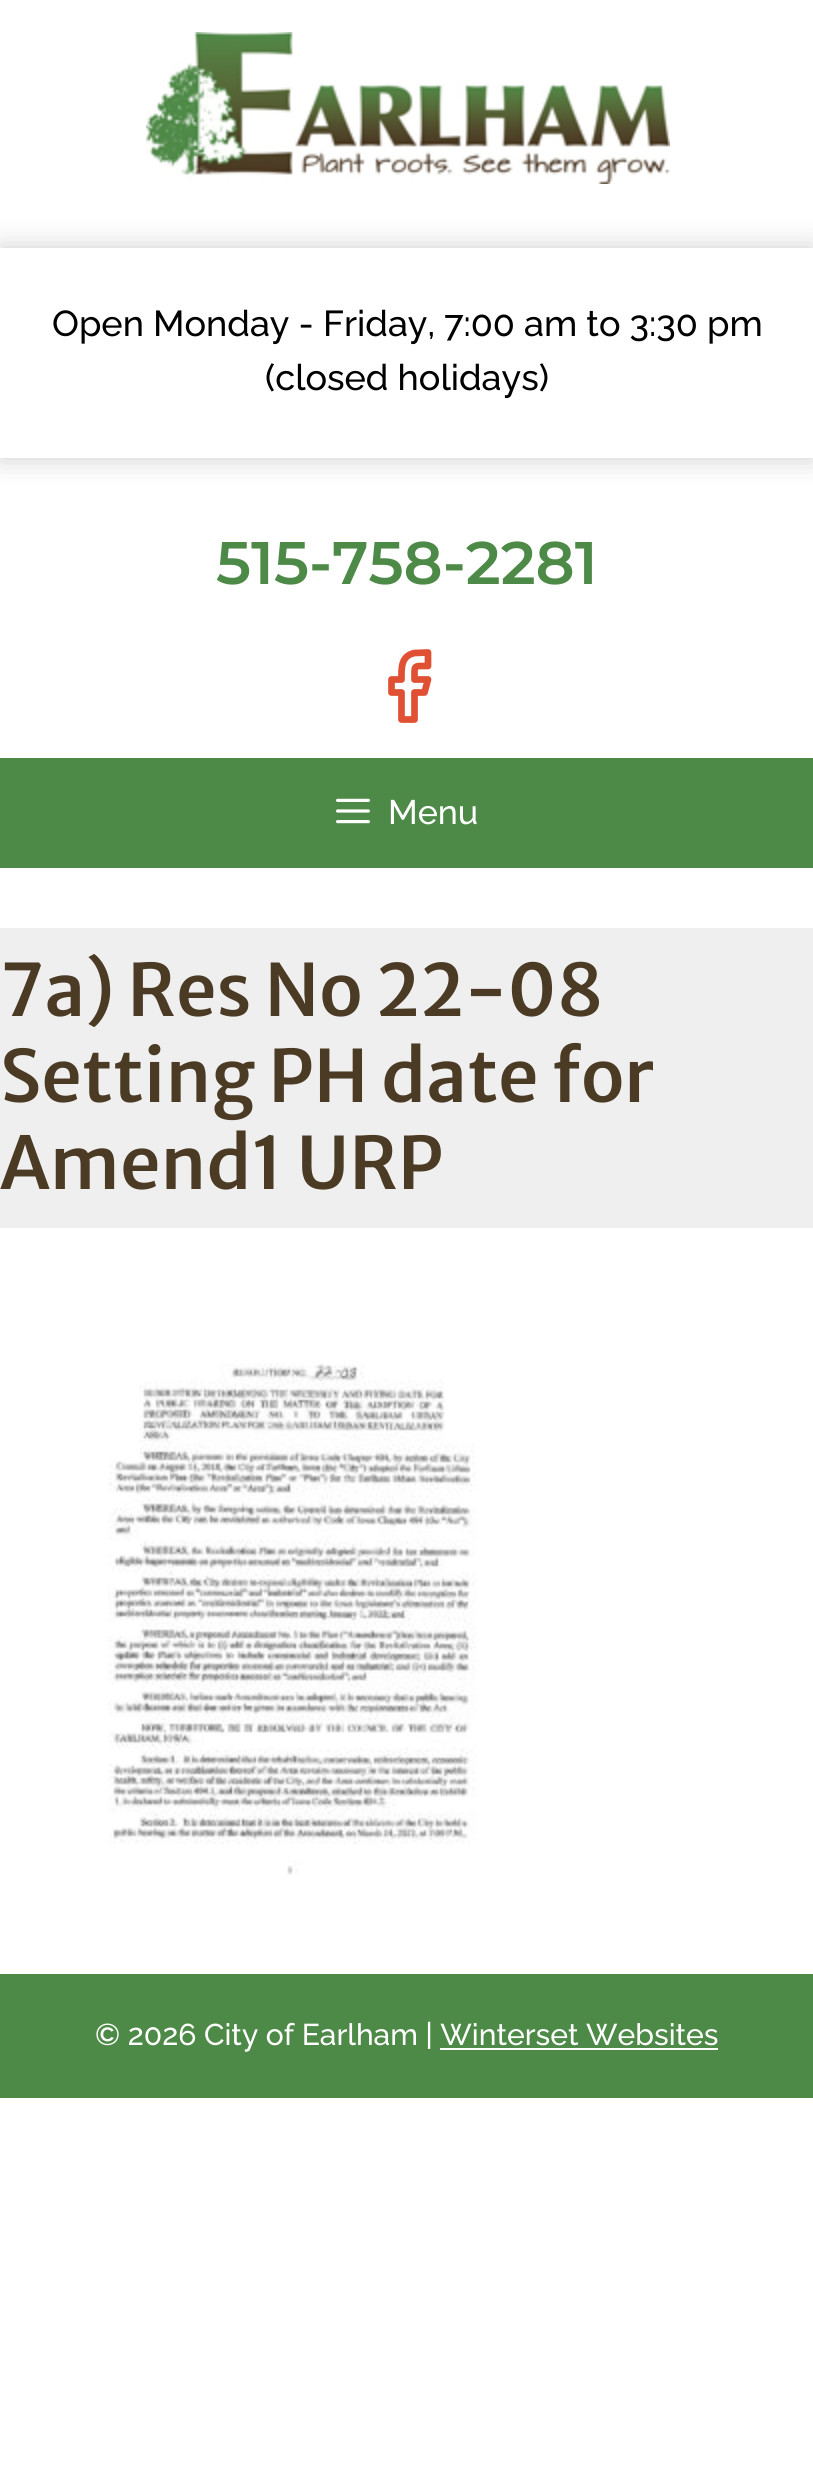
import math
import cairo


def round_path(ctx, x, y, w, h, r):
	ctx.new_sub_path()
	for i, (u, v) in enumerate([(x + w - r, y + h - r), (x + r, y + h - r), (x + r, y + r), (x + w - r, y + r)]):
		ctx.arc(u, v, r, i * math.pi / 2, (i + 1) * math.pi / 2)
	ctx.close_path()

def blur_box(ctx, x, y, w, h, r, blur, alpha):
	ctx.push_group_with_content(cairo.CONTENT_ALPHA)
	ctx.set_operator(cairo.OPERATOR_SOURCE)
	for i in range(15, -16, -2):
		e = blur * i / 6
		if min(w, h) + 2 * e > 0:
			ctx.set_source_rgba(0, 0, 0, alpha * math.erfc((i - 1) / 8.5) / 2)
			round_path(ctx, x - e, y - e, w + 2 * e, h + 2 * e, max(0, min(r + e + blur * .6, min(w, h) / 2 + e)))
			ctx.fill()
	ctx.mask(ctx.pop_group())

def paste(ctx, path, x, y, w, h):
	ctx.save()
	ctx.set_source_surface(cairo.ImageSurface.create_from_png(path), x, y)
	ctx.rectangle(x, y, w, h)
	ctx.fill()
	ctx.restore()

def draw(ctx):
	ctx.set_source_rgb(1, 1, 1)
	ctx.paint()
	paste(ctx, 'media/1.png', 146, 32, 524, 152)
	ctx.save()
	ctx.set_fill_rule(cairo.FILL_RULE_EVEN_ODD)
	ctx.new_path()
	ctx.move_to(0, 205)
	ctx.line_to(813, 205)
	ctx.line_to(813, 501)
	ctx.line_to(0, 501)
	ctx.close_path()
	ctx.move_to(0, 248)
	ctx.line_to(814, 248)
	ctx.line_to(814, 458)
	ctx.line_to(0, 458)
	ctx.close_path()
	ctx.clip()
	ctx.set_source_rgb(0, 0, 0)
	blur_box(ctx, 0, 248, 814, 210, 0, 14, 0.2)
	ctx.restore()
	ctx.select_font_face('Raleway Medium')
	ctx.set_font_size(36)
	ctx.set_source_rgb(0, 0, 0)
	ctx.move_to(52, 336)
	ctx.show_text('Open Monday - Friday, 7:00 am to 3:30 pm')
	ctx.move_to(265, 390)
	ctx.show_text('(closed holidays)')
	ctx.select_font_face('Montserrat SemiBold')
	ctx.set_font_size(60)
	ctx.set_source_rgb(0.306, 0.541, 0.278)
	ctx.move_to(216, 584)
	ctx.show_text('515-758-2281')
	ctx.new_path()
	ctx.move_to(428, 652.5)
	ctx.line_to(414.5, 653)
	ctx.curve_to(400.5, 656, 401.5, 668.5, 401.5, 679.5)
	ctx.line_to(391.5, 679.5)
	ctx.line_to(391.5, 692.5)
	ctx.line_to(401.5, 692.5)
	ctx.line_to(401.5, 719.5)
	ctx.line_to(414.5, 719.5)
	ctx.line_to(414.5, 692.5)
	ctx.line_to(424.5, 692.5)
	ctx.line_to(428, 679.5)
	ctx.line_to(414.5, 679.5)
	ctx.curve_to(414.5, 664.5, 413, 666, 428, 666)
	ctx.close_path()
	ctx.set_source_rgb(0.878, 0.314, 0.2)
	ctx.set_line_width(6.7)
	ctx.set_line_cap(cairo.LINE_CAP_ROUND)
	ctx.set_line_join(cairo.LINE_JOIN_ROUND)
	ctx.stroke()
	ctx.set_source_rgb(0.306, 0.541, 0.278)
	ctx.rectangle(0, 758, 813, 110)
	ctx.fill()
	paste(ctx, 'media/2.png', 336, 798, 34, 26)
	ctx.select_font_face('Raleway Medium')
	ctx.set_font_size(34)
	ctx.set_source_rgb(1, 1, 1)
	ctx.move_to(388, 824)
	ctx.show_text('Menu')
	ctx.set_source_rgb(0.937, 0.937, 0.937)
	ctx.rectangle(0, 928, 813, 300)
	ctx.fill()
	ctx.select_font_face('Merriweather Sans Medium')
	ctx.set_font_size(72)
	ctx.set_source_rgb(0.294, 0.231, 0.141)
	for x, y, s in [
		(0, 1016, '7a) Res No 22-08'),
		(0, 1102, 'Setting PH date for'),
		(0, 1189, 'Amend1 URP'),
	]:
		ctx.move_to(x, y)
		ctx.show_text(s)
	paste(ctx, 'media/3.png', 108, 1363, 368, 512)
	ctx.set_source_rgb(0.306, 0.541, 0.278)
	ctx.rectangle(0, 1974, 813, 124)
	ctx.fill()
	ctx.select_font_face('Raleway Medium')
	ctx.set_font_size(30)
	ctx.set_source_rgb(1, 1, 1)
	ctx.move_to(95, 2045)
	ctx.show_text('© 2026 City of Earlham | Winterset Websites')
	ctx.rectangle(440, 2048, 278, 2)
	ctx.fill()


surface = cairo.ImageSurface(cairo.FORMAT_RGB24, 813, 2479)
ctx = cairo.Context(surface)
options = cairo.FontOptions()
options.set_hint_metrics(cairo.HINT_METRICS_OFF)
options.set_hint_style(cairo.HINT_STYLE_NONE)
ctx.set_font_options(options)
ctx.set_miter_limit(4)
draw(ctx)
surface.write_to_png('image.png')
